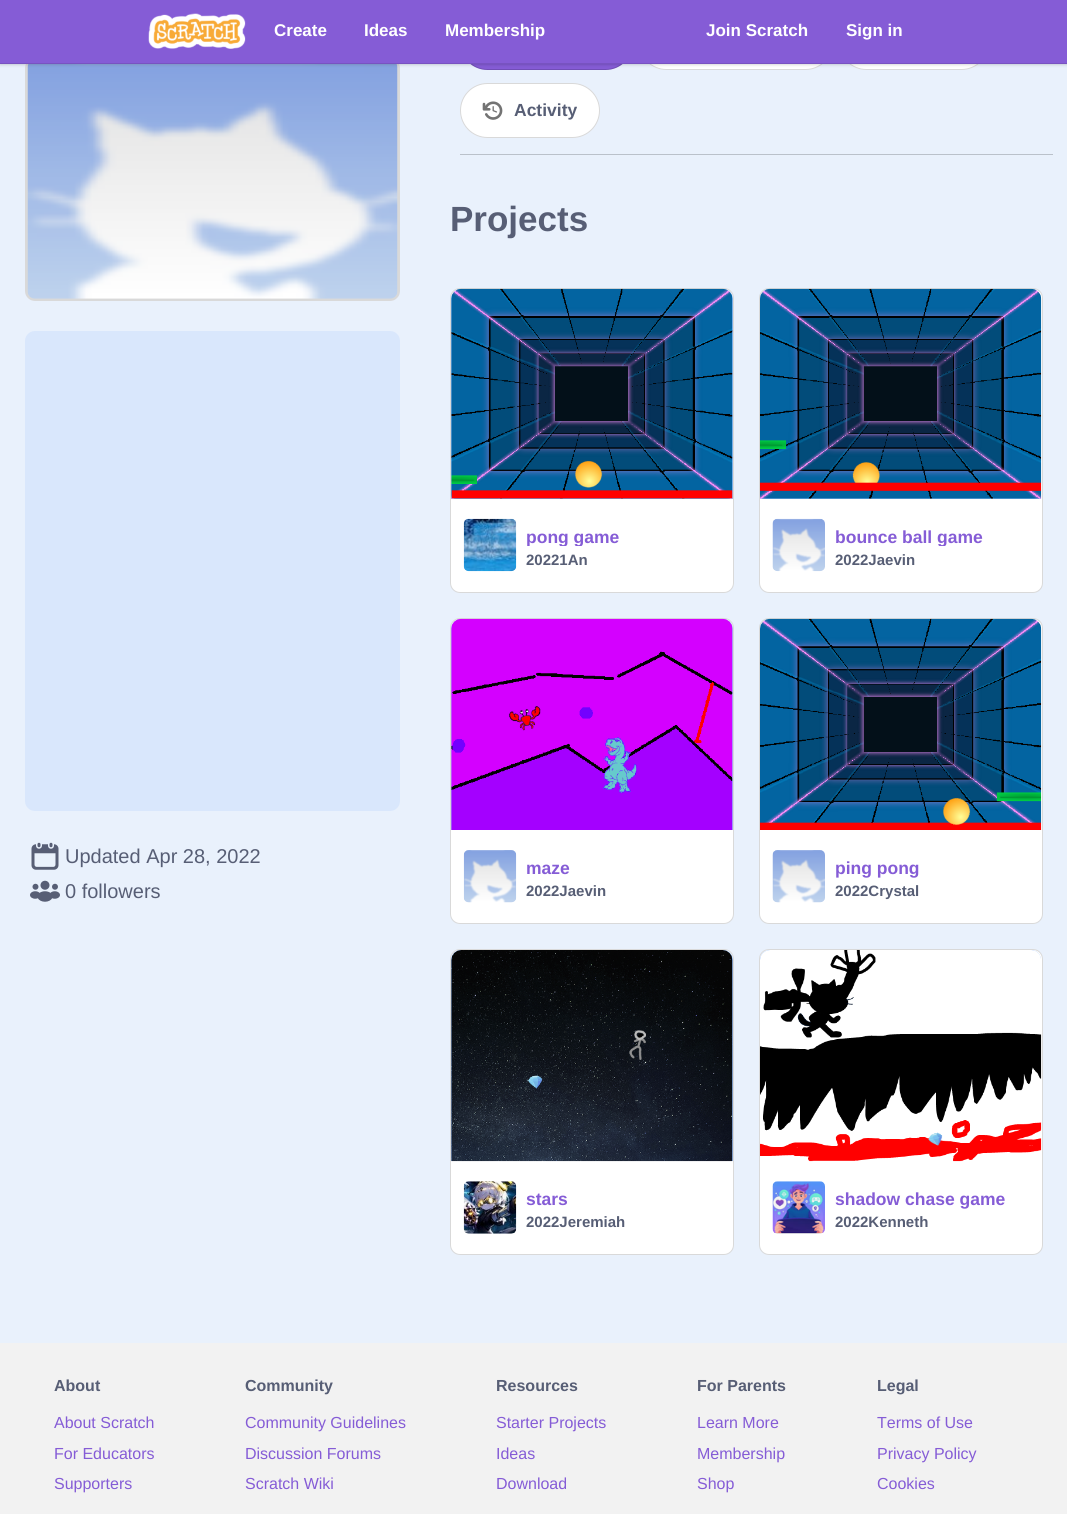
import math
import cairo


def round_path(ctx, x, y, w, h, r):
	ctx.new_sub_path()
	for i, (u, v) in enumerate([(x + w - r, y + h - r), (x + r, y + h - r), (x + r, y + r), (x + w - r, y + r)]):
		ctx.arc(u, v, r, i * math.pi / 2, (i + 1) * math.pi / 2)
	ctx.close_path()

def blur_box(ctx, x, y, w, h, r, blur, alpha):
	ctx.push_group_with_content(cairo.CONTENT_ALPHA)
	ctx.set_operator(cairo.OPERATOR_SOURCE)
	for i in range(15, -16, -2):
		e = blur * i / 6
		if min(w, h) + 2 * e > 0:
			ctx.set_source_rgba(0, 0, 0, alpha * math.erfc((i - 1) / 8.5) / 2)
			round_path(ctx, x - e, y - e, w + 2 * e, h + 2 * e, max(0, min(r + e + blur * .6, min(w, h) / 2 + e)))
			ctx.fill()
	ctx.mask(ctx.pop_group())

def paste(ctx, path, x, y, w, h):
	ctx.save()
	ctx.set_source_surface(cairo.ImageSurface.create_from_png(path), x, y)
	ctx.rectangle(x, y, w, h)
	ctx.fill()
	ctx.restore()

def draw(ctx):
	ctx.set_source_rgb(0.914, 0.945, 0.988)
	ctx.paint()
	ctx.set_source_rgb(1, 1, 1)
	round_path(ctx, 25, 58, 375, 243, 10)
	ctx.fill()
	round_path(ctx, 26.5, 59.5, 372, 240, 8.5)
	ctx.set_source_rgba(0, 0, 0, 0.15)
	ctx.set_line_width(3)
	ctx.stroke()
	paste(ctx, 'media/2.png', 27, 64, 371, 235)
	ctx.set_source_rgb(0.522, 0.361, 0.839)
	round_path(ctx, 460, 15, 173, 55, 27.5)
	ctx.fill()
	round_path(ctx, 460.5, 15.5, 172, 54, 27)
	ctx.set_source_rgba(0, 0, 0, 0.15)
	ctx.set_line_width(1)
	ctx.stroke()
	ctx.set_source_rgb(1, 1, 1)
	round_path(ctx, 639, 15, 194, 55, 27.5)
	ctx.fill()
	round_path(ctx, 639.5, 15.5, 193, 54, 27)
	ctx.set_source_rgba(0, 0, 0, 0.15)
	ctx.stroke()
	ctx.set_source_rgb(1, 1, 1)
	round_path(ctx, 839, 15, 150, 55, 27.5)
	ctx.fill()
	round_path(ctx, 839.5, 15.5, 149, 54, 27)
	ctx.set_source_rgba(0, 0, 0, 0.15)
	ctx.stroke()
	ctx.set_source_rgb(0, 0, 0)
	blur_box(ctx, 0, 0, 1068, 64, 0, 2, 0.25)
	ctx.set_source_rgb(0.522, 0.361, 0.839)
	ctx.rectangle(0, 0, 1067, 63)
	ctx.fill()
	ctx.set_source_rgb(0.471, 0.325, 0.757)
	ctx.rectangle(0, 63, 1067, 1)
	ctx.fill()
	paste(ctx, 'media/1.png', 148, 13, 98, 36)
	ctx.select_font_face('Liberation Sans', cairo.FONT_SLANT_NORMAL, cairo.FONT_WEIGHT_BOLD)
	ctx.set_font_size(17)
	ctx.set_source_rgb(1, 1, 1)
	for x, y, s in [
		(274, 36, 'Create'),
		(364, 36, 'Ideas'),
		(445, 36, 'Membership'),
		(706, 36, 'Join Scratch'),
		(846, 36, 'Sign in'),
	]:
		ctx.move_to(x, y)
		ctx.show_text(s)
	ctx.set_source_rgb(0.851, 0.906, 0.988)
	round_path(ctx, 25, 331, 375, 480, 10)
	ctx.fill()
	paste(ctx, 'media/3.png', 31, 842, 28, 28)
	ctx.select_font_face('Liberation Sans')
	ctx.set_font_size(20)
	ctx.set_source_rgb(0.341, 0.369, 0.459)
	ctx.move_to(65, 863)
	ctx.show_text('Updated Apr 28, 2022')
	paste(ctx, 'media/4.png', 30, 880, 30, 22)
	ctx.move_to(65, 898)
	ctx.show_text('0 followers')
	ctx.set_source_rgb(0.729, 0.757, 0.792)
	ctx.rectangle(460, 154, 593, 1)
	ctx.fill()
	ctx.set_source_rgb(1, 1, 1)
	round_path(ctx, 460, 83, 140, 55, 27.5)
	ctx.fill()
	round_path(ctx, 460.5, 83.5, 139, 54, 27)
	ctx.set_source_rgba(0, 0, 0, 0.15)
	ctx.stroke()
	paste(ctx, 'media/5.png', 482, 101, 21, 19)
	ctx.select_font_face('Liberation Sans', cairo.FONT_SLANT_NORMAL, cairo.FONT_WEIGHT_BOLD)
	ctx.set_font_size(17.5)
	ctx.set_source_rgb(0.341, 0.369, 0.459)
	ctx.move_to(514, 116)
	ctx.show_text('Activity')
	ctx.set_font_size(35)
	ctx.move_to(450, 231)
	ctx.show_text('Projects')
	ctx.set_source_rgb(1, 1, 1)
	round_path(ctx, 450.5, 288.5, 283, 304, 9.5)
	ctx.fill_preserve()
	ctx.set_source_rgb(0.851, 0.851, 0.851)
	ctx.stroke()
	ctx.set_source_rgb(0.627, 0.776, 0.988)
	ctx.new_path()
	ctx.move_to(461, 289)
	ctx.line_to(723, 289)
	ctx.curve_to(728.5, 289, 733, 293.5, 733, 299)
	ctx.line_to(733, 499)
	ctx.line_to(451, 499)
	ctx.line_to(451, 299)
	ctx.curve_to(451, 293.5, 455.5, 289, 461, 289)
	ctx.close_path()
	ctx.fill()
	paste(ctx, 'media/6.png', 451, 288, 282, 211)
	paste(ctx, 'media/7.png', 463, 518, 54, 54)
	ctx.save()
	ctx.rectangle(526, 526, 192, 20)
	ctx.clip()
	ctx.set_font_size(17.5)
	ctx.set_source_rgb(0.522, 0.361, 0.839)
	ctx.move_to(526, 543)
	ctx.show_text('pong game')
	ctx.restore()
	ctx.set_font_size(15)
	ctx.set_source_rgb(0.341, 0.369, 0.459)
	ctx.move_to(526, 565)
	ctx.show_text('20221An')
	ctx.set_source_rgb(1, 1, 1)
	round_path(ctx, 759.5, 288.5, 283, 304, 9.5)
	ctx.fill_preserve()
	ctx.set_source_rgb(0.851, 0.851, 0.851)
	ctx.stroke()
	ctx.set_source_rgb(0.627, 0.776, 0.988)
	ctx.new_path()
	ctx.move_to(770, 289)
	ctx.line_to(1031, 289)
	ctx.curve_to(1036.5, 289, 1041, 293.5, 1041, 299)
	ctx.line_to(1041, 499)
	ctx.line_to(760, 499)
	ctx.line_to(760, 299)
	ctx.curve_to(760, 293.5, 764.5, 289, 770, 289)
	ctx.close_path()
	ctx.fill()
	paste(ctx, 'media/8.png', 760, 288, 282, 211)
	paste(ctx, 'media/9.png', 772, 518, 53, 54)
	ctx.save()
	ctx.rectangle(835, 526, 191, 20)
	ctx.clip()
	ctx.set_font_size(17.5)
	ctx.set_source_rgb(0.522, 0.361, 0.839)
	ctx.move_to(835, 543)
	ctx.show_text('bounce ball game')
	ctx.restore()
	ctx.set_source_rgb(0.341, 0.369, 0.459)
	ctx.move_to(835, 565)
	ctx.show_text('2022Jaevin')
	ctx.set_source_rgb(1, 1, 1)
	round_path(ctx, 450.5, 618.5, 283, 305, 9.5)
	ctx.fill_preserve()
	ctx.set_source_rgb(0.851, 0.851, 0.851)
	ctx.stroke()
	ctx.set_source_rgb(0.627, 0.776, 0.988)
	ctx.new_path()
	ctx.move_to(461, 619)
	ctx.line_to(723, 619)
	ctx.curve_to(728.5, 619, 733, 623.5, 733, 629)
	ctx.line_to(733, 830)
	ctx.line_to(451, 830)
	ctx.line_to(451, 629)
	ctx.curve_to(451, 623.5, 455.5, 619, 461, 619)
	ctx.close_path()
	ctx.fill()
	paste(ctx, 'media/10.png', 451, 618, 282, 212)
	paste(ctx, 'media/11.png', 463, 850, 54, 53)
	ctx.set_font_size(17.5)
	ctx.set_source_rgb(0.522, 0.361, 0.839)
	ctx.move_to(526, 874)
	ctx.show_text('maze')
	ctx.set_font_size(15)
	ctx.set_source_rgb(0.341, 0.369, 0.459)
	ctx.move_to(526, 896)
	ctx.show_text('2022Jaevin')
	ctx.set_source_rgb(1, 1, 1)
	round_path(ctx, 759.5, 618.5, 283, 305, 9.5)
	ctx.fill_preserve()
	ctx.set_source_rgb(0.851, 0.851, 0.851)
	ctx.stroke()
	paste(ctx, 'media/12.png', 760, 618, 282, 212)
	paste(ctx, 'media/13.png', 772, 850, 53, 53)
	ctx.set_font_size(17.5)
	ctx.set_source_rgb(0.522, 0.361, 0.839)
	ctx.move_to(835, 874)
	ctx.show_text('ping pong')
	ctx.set_font_size(15)
	ctx.set_source_rgb(0.341, 0.369, 0.459)
	ctx.move_to(835, 896)
	ctx.show_text('2022Crystal')
	ctx.set_source_rgb(1, 1, 1)
	round_path(ctx, 450.5, 949.5, 283, 305, 9.5)
	ctx.fill_preserve()
	ctx.set_source_rgb(0.851, 0.851, 0.851)
	ctx.stroke()
	ctx.set_source_rgb(0.627, 0.776, 0.988)
	ctx.new_path()
	ctx.move_to(461, 950)
	ctx.line_to(723, 950)
	ctx.curve_to(728.5, 950, 733, 954.5, 733, 960)
	ctx.line_to(733, 1161)
	ctx.line_to(451, 1161)
	ctx.line_to(451, 960)
	ctx.curve_to(451, 954.5, 455.5, 950, 461, 950)
	ctx.close_path()
	ctx.fill()
	paste(ctx, 'media/14.png', 451, 950, 282, 212)
	paste(ctx, 'media/15.png', 463, 1181, 54, 53)
	ctx.set_font_size(17.5)
	ctx.set_source_rgb(0.522, 0.361, 0.839)
	ctx.move_to(526, 1205)
	ctx.show_text('stars')
	ctx.set_font_size(15)
	ctx.set_source_rgb(0.341, 0.369, 0.459)
	ctx.move_to(526, 1227)
	ctx.show_text('2022Jeremiah')
	ctx.set_source_rgb(1, 1, 1)
	round_path(ctx, 759.5, 949.5, 283, 305, 9.5)
	ctx.fill_preserve()
	ctx.set_source_rgb(0.851, 0.851, 0.851)
	ctx.stroke()
	ctx.set_source_rgb(0.627, 0.776, 0.988)
	ctx.new_path()
	ctx.move_to(770, 950)
	ctx.line_to(1031, 950)
	ctx.curve_to(1036.5, 950, 1041, 954.5, 1041, 960)
	ctx.line_to(1041, 1161)
	ctx.line_to(760, 1161)
	ctx.line_to(760, 960)
	ctx.curve_to(760, 954.5, 764.5, 950, 770, 950)
	ctx.close_path()
	ctx.fill()
	paste(ctx, 'media/16.png', 760, 950, 282, 212)
	paste(ctx, 'media/17.png', 772, 1181, 53, 53)
	ctx.set_font_size(17.5)
	ctx.set_source_rgb(0.522, 0.361, 0.839)
	ctx.move_to(835, 1205)
	ctx.show_text('shadow chase game')
	ctx.set_font_size(15)
	ctx.set_source_rgb(0.341, 0.369, 0.459)
	ctx.move_to(835, 1227)
	ctx.show_text('2022Kenneth')
	ctx.set_source_rgb(0.949, 0.949, 0.949)
	ctx.rectangle(0, 1343, 1067, 171)
	ctx.fill()
	ctx.set_font_size(16)
	ctx.set_source_rgb(0.341, 0.369, 0.459)
	ctx.move_to(54, 1391)
	ctx.show_text('About')
	ctx.select_font_face('Liberation Sans')
	ctx.set_source_rgb(0.522, 0.361, 0.839)
	for x, y, s in [
		(54, 1428, 'About Scratch'),
		(54, 1459, 'For Educators'),
		(54, 1489, 'Supporters'),
	]:
		ctx.move_to(x, y)
		ctx.show_text(s)
	ctx.select_font_face('Liberation Sans', cairo.FONT_SLANT_NORMAL, cairo.FONT_WEIGHT_BOLD)
	ctx.set_source_rgb(0.341, 0.369, 0.459)
	ctx.move_to(245, 1391)
	ctx.show_text('Community')
	ctx.select_font_face('Liberation Sans')
	ctx.set_source_rgb(0.522, 0.361, 0.839)
	for x, y, s in [
		(245, 1428, 'Community Guidelines'),
		(245, 1459, 'Discussion Forums'),
		(245, 1489, 'Scratch Wiki'),
	]:
		ctx.move_to(x, y)
		ctx.show_text(s)
	ctx.select_font_face('Liberation Sans', cairo.FONT_SLANT_NORMAL, cairo.FONT_WEIGHT_BOLD)
	ctx.set_source_rgb(0.341, 0.369, 0.459)
	ctx.move_to(496, 1391)
	ctx.show_text('Resources')
	ctx.select_font_face('Liberation Sans')
	ctx.set_source_rgb(0.522, 0.361, 0.839)
	for x, y, s in [
		(496, 1428, 'Starter Projects'),
		(496, 1459, 'Ideas'),
		(496, 1489, 'Download'),
	]:
		ctx.move_to(x, y)
		ctx.show_text(s)
	ctx.select_font_face('Liberation Sans', cairo.FONT_SLANT_NORMAL, cairo.FONT_WEIGHT_BOLD)
	ctx.set_source_rgb(0.341, 0.369, 0.459)
	ctx.move_to(697, 1391)
	ctx.show_text('For Parents')
	ctx.select_font_face('Liberation Sans')
	ctx.set_source_rgb(0.522, 0.361, 0.839)
	for x, y, s in [
		(697, 1428, 'Learn More'),
		(697, 1459, 'Membership'),
		(697, 1489, 'Shop'),
	]:
		ctx.move_to(x, y)
		ctx.show_text(s)
	ctx.select_font_face('Liberation Sans', cairo.FONT_SLANT_NORMAL, cairo.FONT_WEIGHT_BOLD)
	ctx.set_source_rgb(0.341, 0.369, 0.459)
	ctx.move_to(877, 1391)
	ctx.show_text('Legal')
	ctx.select_font_face('Liberation Sans')
	ctx.set_source_rgb(0.522, 0.361, 0.839)
	for x, y, s in [
		(877, 1428, 'Terms of Use'),
		(877, 1459, 'Privacy Policy'),
		(877, 1489, 'Cookies'),
	]:
		ctx.move_to(x, y)
		ctx.show_text(s)


surface = cairo.ImageSurface(cairo.FORMAT_RGB24, 1067, 1514)
ctx = cairo.Context(surface)
options = cairo.FontOptions()
options.set_hint_metrics(cairo.HINT_METRICS_OFF)
options.set_hint_style(cairo.HINT_STYLE_NONE)
ctx.set_font_options(options)
ctx.set_miter_limit(4)
draw(ctx)
surface.write_to_png('image.png')
